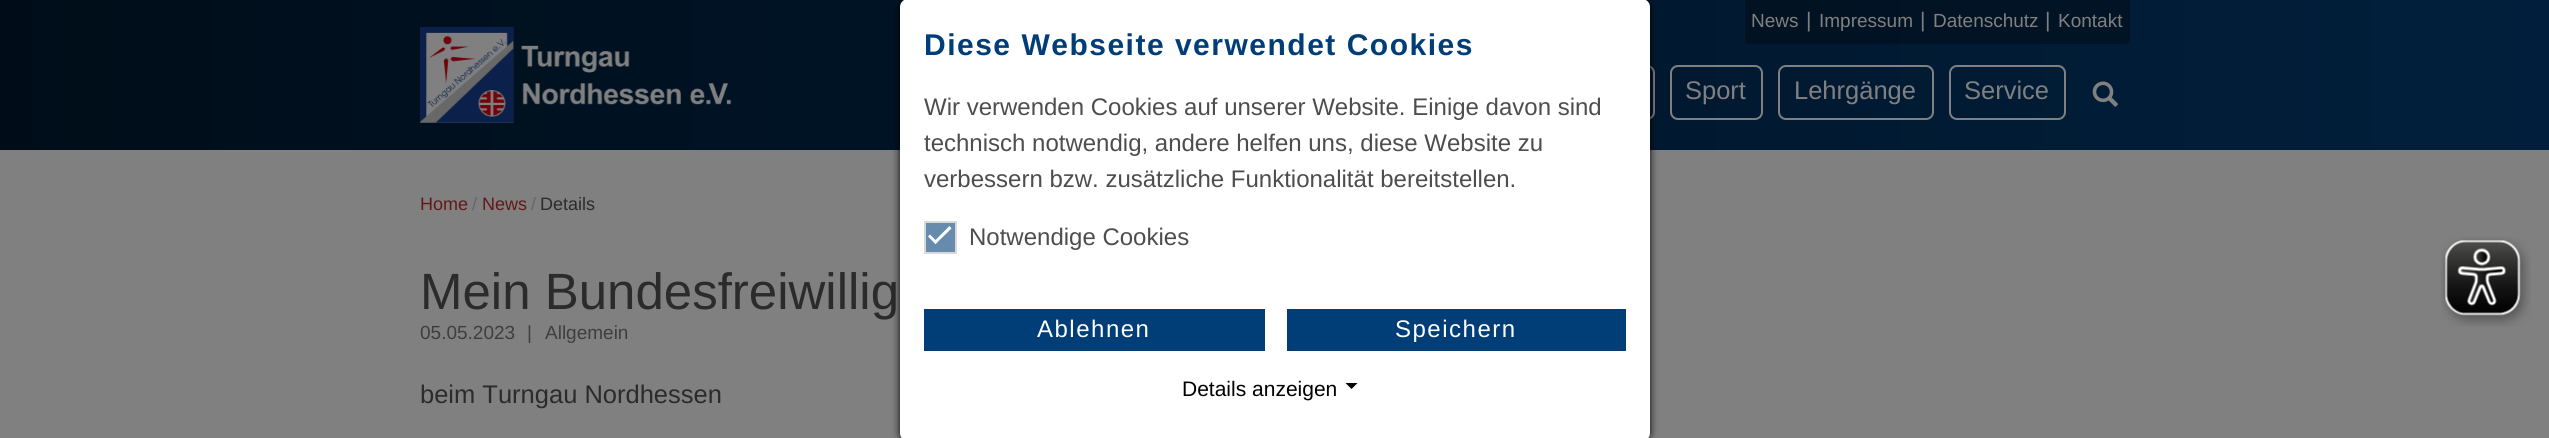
import math
import cairo


def write_spaced(ctx, x, y, s, letter, word):
	ctx.move_to(x, y)
	for ch in s:
		ctx.show_text(ch)
		ctx.rel_move_to(letter + word * (ch == ' '), 0)

def round_path(ctx, x, y, w, h, r):
	ctx.new_sub_path()
	for i, (u, v) in enumerate([(x + w - r, y + h - r), (x + r, y + h - r), (x + r, y + r), (x + w - r, y + r)]):
		ctx.arc(u, v, r, i * math.pi / 2, (i + 1) * math.pi / 2)
	ctx.close_path()

def blur_box(ctx, x, y, w, h, r, blur, alpha):
	ctx.push_group_with_content(cairo.CONTENT_ALPHA)
	ctx.set_operator(cairo.OPERATOR_SOURCE)
	for i in range(15, -16, -2):
		e = blur * i / 6
		if min(w, h) + 2 * e > 0:
			ctx.set_source_rgba(0, 0, 0, alpha * math.erfc((i - 1) / 8.5) / 2)
			round_path(ctx, x - e, y - e, w + 2 * e, h + 2 * e, max(0, min(r + e + blur * .6, min(w, h) / 2 + e)))
			ctx.fill()
	ctx.mask(ctx.pop_group())

def paste(ctx, path, x, y, w, h):
	ctx.save()
	ctx.set_source_surface(cairo.ImageSurface.create_from_png(path), x, y)
	ctx.rectangle(x, y, w, h)
	ctx.fill()
	ctx.restore()

def draw(ctx):
	ctx.set_source_rgb(0.502, 0.502, 0.502)
	ctx.paint()
	ctx.select_font_face('Liberation Sans')
	ctx.set_font_size(18)
	ctx.set_source_rgb(0.388, 0.094, 0.086)
	ctx.move_to(420, 210)
	ctx.show_text('Home')
	ctx.set_source_rgb(0.4, 0.4, 0.4)
	ctx.move_to(472, 210)
	ctx.show_text('/')
	ctx.set_source_rgb(0.388, 0.094, 0.086)
	ctx.move_to(482, 210)
	ctx.show_text('News')
	ctx.set_source_rgb(0.4, 0.4, 0.4)
	ctx.move_to(531, 210)
	ctx.show_text('/')
	ctx.set_source_rgb(0.169, 0.169, 0.169)
	ctx.move_to(540, 210)
	ctx.show_text('Details')
	ctx.set_font_size(51)
	ctx.move_to(420, 309)
	ctx.show_text('Mein Bundesfreiwillig')
	ctx.set_font_size(19)
	ctx.set_source_rgb(0.243, 0.243, 0.243)
	for x, y, s in [
		(420, 339, '05.05.2023'),
		(527, 339, '|'),
		(545, 339, 'Allgemein'),
	]:
		ctx.move_to(x, y)
		ctx.show_text(s)
	ctx.set_font_size(25.5)
	ctx.set_source_rgb(0.169, 0.169, 0.169)
	ctx.move_to(420, 403)
	ctx.show_text('beim Turngau Nordhessen')
	gradient = cairo.LinearGradient(0, 75, 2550, 75)
	gradient.add_color_stop_rgba(0, 0, 0.051, 0.098, 1)
	gradient.add_color_stop_rgba(1, 0.004, 0.122, 0.235, 1)
	ctx.set_source(gradient)
	ctx.rectangle(0, 0, 2549, 150)
	ctx.fill()
	round_path(ctx, 1527, 66, 127, 53, 7)
	ctx.set_source_rgb(0.502, 0.502, 0.502)
	ctx.stroke()
	ctx.set_source_rgb(0, 0, 0)
	blur_box(ctx, 900, -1, 750, 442, 8, 4, 1)
	ctx.set_source_rgb(1, 1, 1)
	round_path(ctx, 900, -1, 750, 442, 8)
	ctx.fill()
	ctx.select_font_face('Liberation Sans', cairo.FONT_SLANT_NORMAL, cairo.FONT_WEIGHT_BOLD)
	ctx.set_font_size(30)
	ctx.set_source_rgb(0.004, 0.239, 0.467)
	write_spaced(ctx, 924, 55, 'Diese Webseite verwendet Cookies', 1.5, 0)
	ctx.select_font_face('Liberation Sans')
	ctx.set_font_size(24)
	ctx.set_source_rgb(0.302, 0.302, 0.302)
	for x, y, s in [
		(924, 115, 'Wir verwenden Cookies auf unserer Website. Einige davon sind'),
		(924, 151, 'technisch notwendig, andere helfen uns, diese Website zu'),
		(924, 187, 'verbessern bzw. zusätzliche Funktionalität bereitstellen.'),
	]:
		ctx.move_to(x, y)
		ctx.show_text(s)
	ctx.set_source_rgb(0.404, 0.545, 0.678)
	ctx.rectangle(925, 222, 31, 31)
	ctx.fill_preserve()
	ctx.set_source_rgb(0.851, 0.851, 0.851)
	ctx.stroke()
	ctx.set_source_rgb(1, 1, 1)
	ctx.new_path()
	ctx.move_to(949.5, 226)
	ctx.line_to(951.5, 228.5)
	ctx.line_to(935.5, 244)
	ctx.line_to(933.5, 242)
	ctx.close_path()
	ctx.fill()
	ctx.new_path()
	ctx.move_to(930, 234.5)
	ctx.line_to(937.5, 242)
	ctx.line_to(935.5, 244)
	ctx.line_to(928, 236.5)
	ctx.close_path()
	ctx.fill()
	ctx.set_source_rgb(0.302, 0.302, 0.302)
	ctx.move_to(969, 245)
	ctx.show_text('Notwendige Cookies')
	ctx.set_source_rgb(0.004, 0.239, 0.467)
	ctx.rectangle(924, 309, 341, 42)
	ctx.fill()
	ctx.set_source_rgb(1, 1, 1)
	write_spaced(ctx, 1037, 337, 'Ablehnen', 1.5, 0)
	ctx.set_source_rgb(0.004, 0.239, 0.467)
	ctx.rectangle(1287, 309, 339, 42)
	ctx.fill()
	ctx.set_source_rgb(1, 1, 1)
	write_spaced(ctx, 1395, 337, 'Speichern', 1.5, 0)
	ctx.set_font_size(21)
	ctx.set_source_rgb(0, 0, 0)
	ctx.move_to(1182, 396)
	ctx.show_text('Details anzeigen')
	ctx.new_path()
	ctx.move_to(1345.5, 383)
	ctx.line_to(1357.5, 383)
	ctx.line_to(1351.5, 389)
	ctx.close_path()
	ctx.fill()
	ctx.set_source_rgba(0, 0, 0, 0.3)
	ctx.new_path()
	ctx.move_to(1745, 0)
	ctx.line_to(2130, 0)
	ctx.line_to(2130, 39)
	ctx.curve_to(2130, 42, 2128, 44, 2125, 44)
	ctx.line_to(1750, 44)
	ctx.curve_to(1747, 44, 1745, 42, 1745, 39)
	ctx.close_path()
	ctx.fill()
	ctx.set_font_size(19)
	ctx.set_source_rgb(0.502, 0.502, 0.502)
	ctx.move_to(1751, 27)
	ctx.show_text('News')
	ctx.set_font_size(21)
	ctx.move_to(1806, 27)
	ctx.show_text('|')
	ctx.set_font_size(19)
	ctx.move_to(1819, 27)
	ctx.show_text('Impressum')
	ctx.set_font_size(21)
	ctx.move_to(1920, 27)
	ctx.show_text('|')
	ctx.set_font_size(19)
	ctx.move_to(1933, 27)
	ctx.show_text('Datenschutz')
	ctx.set_font_size(21)
	ctx.move_to(2045, 27)
	ctx.show_text('|')
	ctx.set_font_size(19)
	ctx.move_to(2058, 27)
	ctx.show_text('Kontakt')
	paste(ctx, 'media/1.png', 420, 27, 312, 96)
	round_path(ctx, 1671, 66, 91, 53, 7)
	ctx.stroke()
	ctx.set_font_size(25.5)
	ctx.move_to(1685, 99)
	ctx.show_text('Sport')
	round_path(ctx, 1779, 66, 154, 53, 7)
	ctx.stroke()
	ctx.move_to(1794, 99)
	ctx.show_text('Lehrgänge')
	round_path(ctx, 1950, 66, 115, 53, 7)
	ctx.stroke()
	ctx.move_to(1964, 99)
	ctx.show_text('Service')
	paste(ctx, 'media/2.png', 2092, 81, 26, 26)
	paste(ctx, 'media/3.png', 2441, 237, 90, 90)


surface = cairo.ImageSurface(cairo.FORMAT_RGB24, 2549, 438)
ctx = cairo.Context(surface)
options = cairo.FontOptions()
options.set_hint_metrics(cairo.HINT_METRICS_OFF)
options.set_hint_style(cairo.HINT_STYLE_NONE)
ctx.set_font_options(options)
ctx.set_miter_limit(4)
draw(ctx)
surface.write_to_png('image.png')
